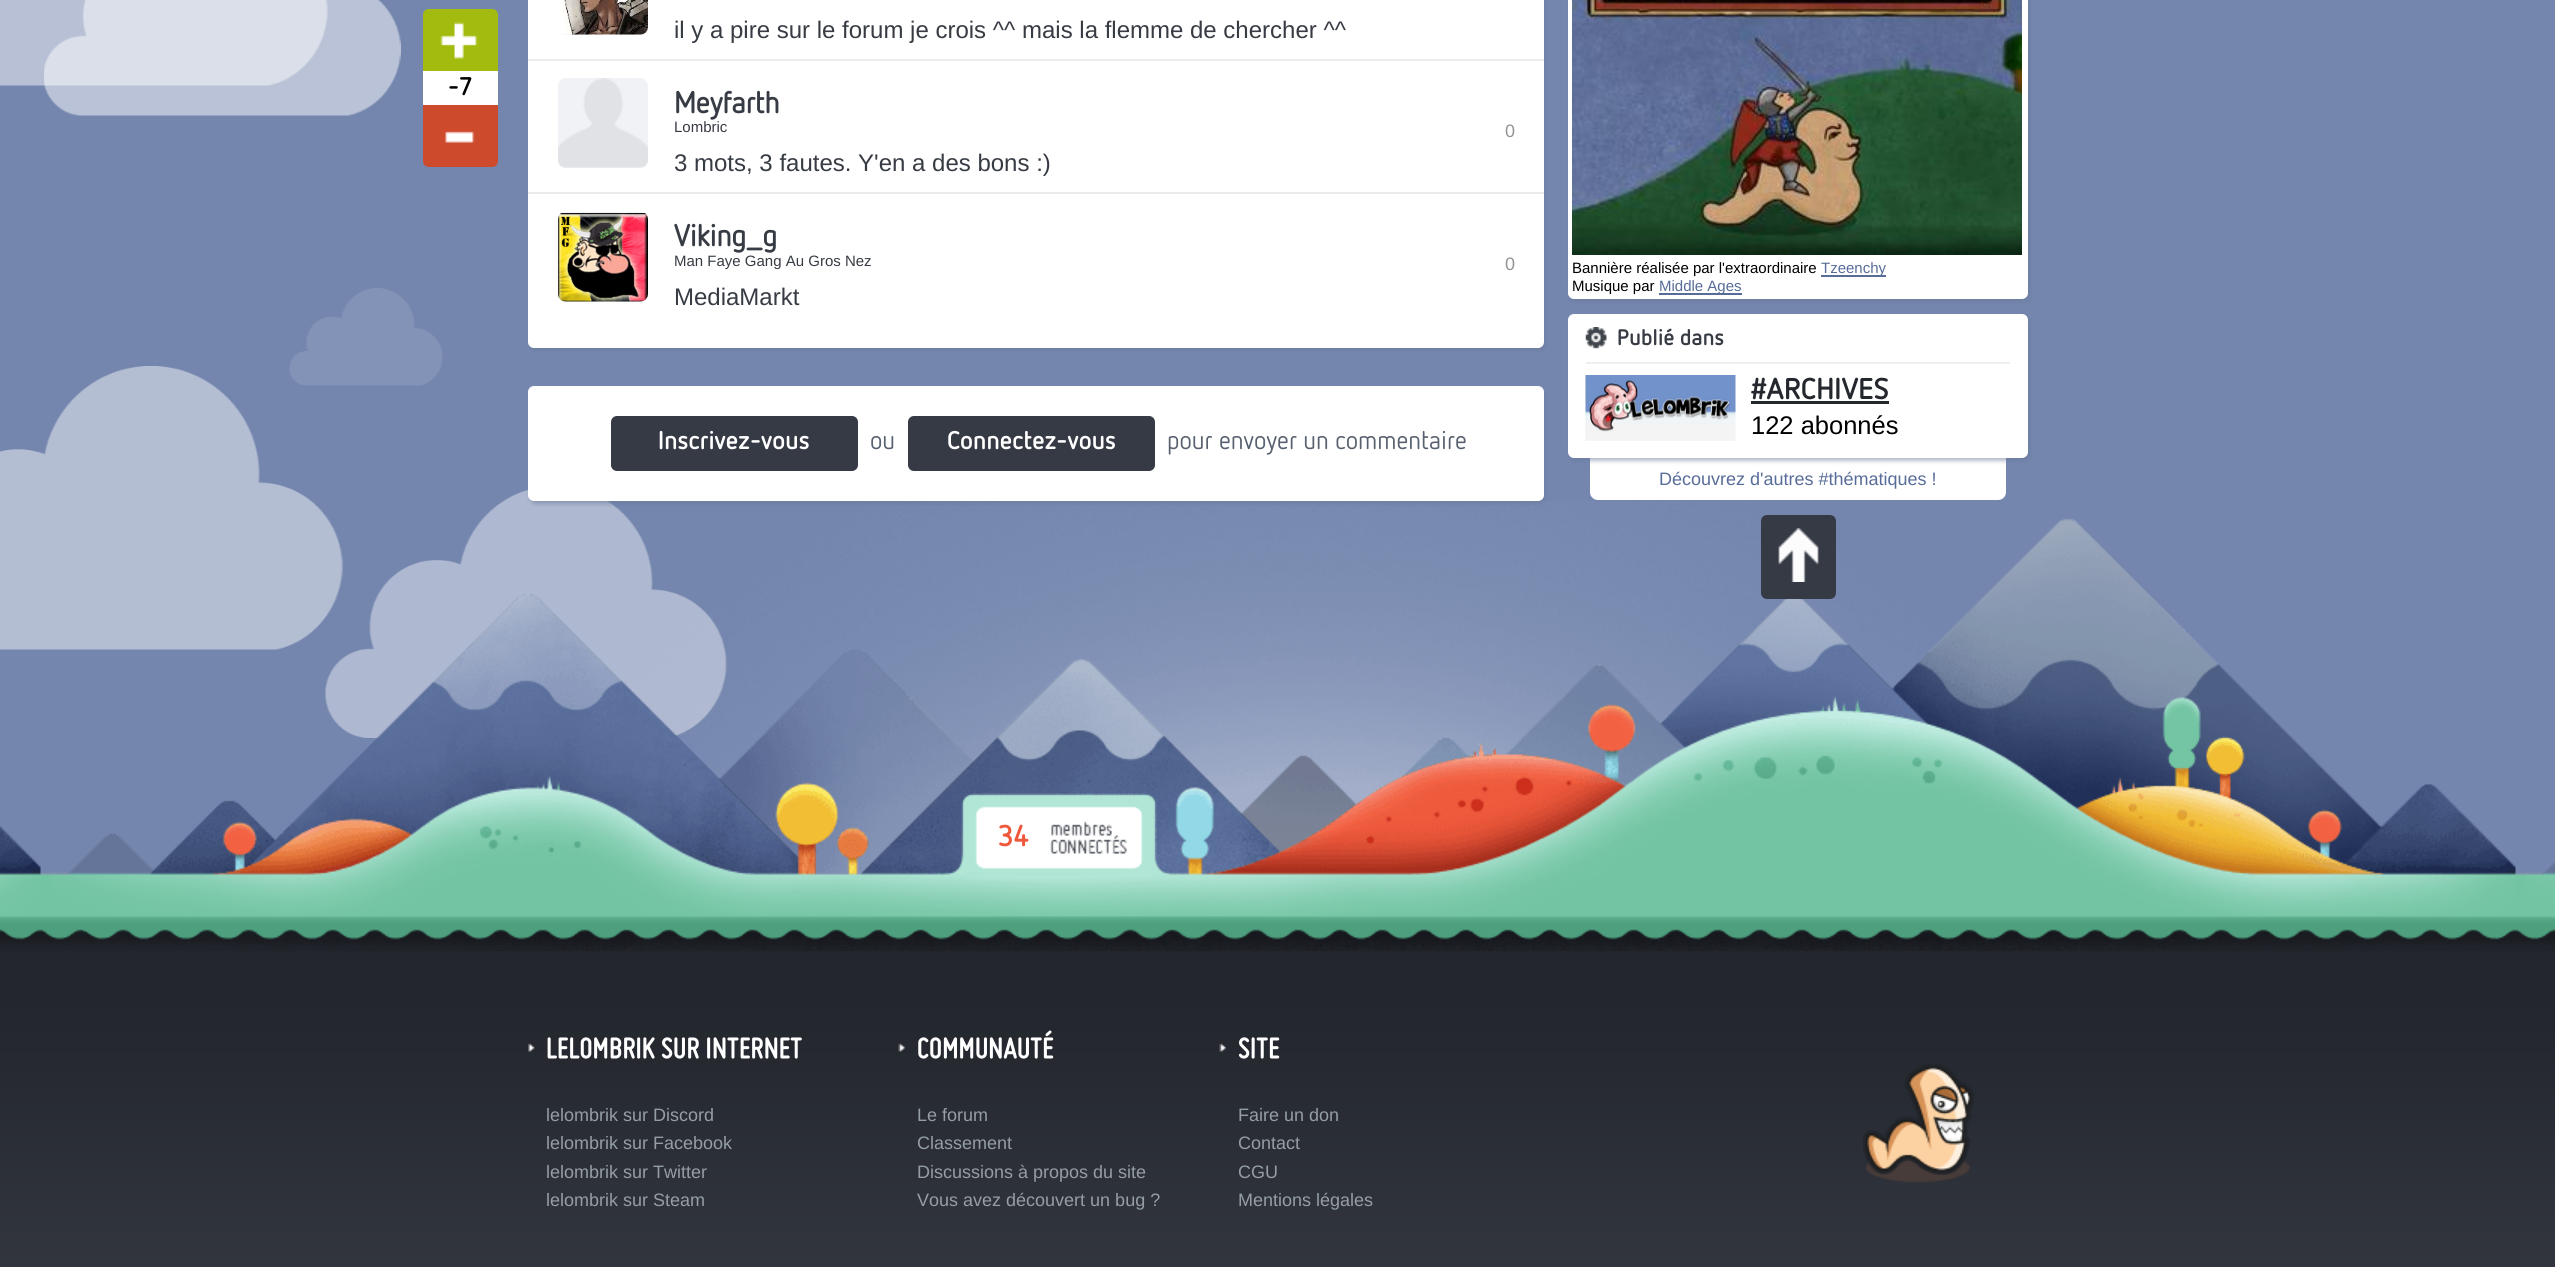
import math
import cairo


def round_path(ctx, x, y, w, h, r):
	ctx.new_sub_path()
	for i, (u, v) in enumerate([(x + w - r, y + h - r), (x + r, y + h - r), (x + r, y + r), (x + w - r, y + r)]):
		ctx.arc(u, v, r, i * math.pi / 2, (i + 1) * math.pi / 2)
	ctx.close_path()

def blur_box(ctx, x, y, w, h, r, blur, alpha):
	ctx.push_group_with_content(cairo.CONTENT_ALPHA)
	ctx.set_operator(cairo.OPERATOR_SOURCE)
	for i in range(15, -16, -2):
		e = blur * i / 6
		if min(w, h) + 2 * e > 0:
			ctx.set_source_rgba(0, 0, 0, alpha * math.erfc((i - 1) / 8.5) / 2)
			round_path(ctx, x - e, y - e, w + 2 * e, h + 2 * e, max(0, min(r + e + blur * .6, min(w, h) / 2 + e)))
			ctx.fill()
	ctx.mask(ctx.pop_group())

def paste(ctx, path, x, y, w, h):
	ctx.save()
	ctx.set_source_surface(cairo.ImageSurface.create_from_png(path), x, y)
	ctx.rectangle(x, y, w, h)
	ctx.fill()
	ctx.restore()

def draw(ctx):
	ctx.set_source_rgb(0.455, 0.525, 0.682)
	ctx.paint()
	paste(ctx, 'media/1.png', 0, 0, 328, 86)
	paste(ctx, 'media/2.png', 44, 0, 357, 116)
	paste(ctx, 'media/3.png', 0, 366, 343, 284)
	paste(ctx, 'media/4.png', 325, 490, 402, 248)
	ctx.set_source_rgb(0.639, 0.733, 0.059)
	ctx.new_path()
	ctx.move_to(429, 9)
	ctx.line_to(492, 9)
	ctx.curve_to(495.5, 9, 498, 11.5, 498, 15)
	ctx.line_to(498, 71)
	ctx.line_to(423, 71)
	ctx.line_to(423, 15)
	ctx.curve_to(423, 11.5, 425.5, 9, 429, 9)
	ctx.close_path()
	ctx.fill()
	paste(ctx, 'media/5.png', 440, 22, 38, 37)
	ctx.set_source_rgb(1, 1, 1)
	ctx.rectangle(423, 71, 75, 34)
	ctx.fill()
	ctx.select_font_face('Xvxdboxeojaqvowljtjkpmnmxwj', cairo.FONT_SLANT_NORMAL, cairo.FONT_WEIGHT_BOLD)
	ctx.set_font_size(25.5)
	ctx.set_source_rgb(0, 0, 0)
	ctx.move_to(448, 95)
	ctx.show_text('-7')
	ctx.set_source_rgb(0.808, 0.29, 0.173)
	ctx.new_path()
	ctx.move_to(423, 105)
	ctx.line_to(498, 105)
	ctx.line_to(498, 161)
	ctx.curve_to(498, 164.5, 495.5, 167, 492, 167)
	ctx.line_to(429, 167)
	ctx.curve_to(425.5, 167, 423, 164.5, 423, 161)
	ctx.close_path()
	ctx.fill()
	paste(ctx, 'media/6.png', 445, 131, 30, 12)
	ctx.set_source_rgb(0.404, 0.467, 0.588)
	blur_box(ctx, 530, -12, 1015, 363, 6, 2, 0.5)
	ctx.set_source_rgb(1, 1, 1)
	round_path(ctx, 528, -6, 1016, 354, 6)
	ctx.fill()
	ctx.set_source_rgb(0.941, 0.949, 0.961)
	round_path(ctx, 558, -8, 90, 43, 8)
	ctx.fill()
	paste(ctx, 'media/7.png', 558, 0, 90, 35)
	ctx.select_font_face('Liberation Sans')
	ctx.set_font_size(24)
	ctx.set_source_rgb(0.216, 0.231, 0.263)
	ctx.move_to(674, 38)
	ctx.show_text('il y a pire sur le forum je crois ^^ mais la flemme de chercher ^^')
	ctx.set_source_rgb(0.918, 0.918, 0.918)
	ctx.rectangle(528, 59, 1016, 2)
	ctx.fill()
	ctx.set_source_rgb(0.941, 0.949, 0.961)
	round_path(ctx, 558, 78, 90, 90, 8)
	ctx.fill()
	paste(ctx, 'media/8.png', 558, 78, 90, 90)
	ctx.select_font_face('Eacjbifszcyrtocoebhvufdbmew', cairo.FONT_SLANT_NORMAL, cairo.FONT_WEIGHT_BOLD)
	ctx.set_font_size(30)
	ctx.set_source_rgb(0.216, 0.231, 0.263)
	ctx.move_to(674, 113)
	ctx.show_text('Meyfarth')
	ctx.select_font_face('Liberation Sans')
	ctx.set_font_size(15)
	ctx.move_to(674, 132)
	ctx.show_text('Lombric')
	ctx.set_font_size(18)
	ctx.set_source_rgb(0.576, 0.576, 0.576)
	ctx.move_to(1505, 137)
	ctx.show_text('0')
	ctx.set_font_size(24)
	ctx.set_source_rgb(0.216, 0.231, 0.263)
	ctx.move_to(674, 171)
	ctx.show_text('3 mots, 3 fautes. Y\'en a des bons :)')
	ctx.set_source_rgb(0.918, 0.918, 0.918)
	ctx.rectangle(528, 192, 1016, 2)
	ctx.fill()
	ctx.set_source_rgb(0.941, 0.949, 0.961)
	round_path(ctx, 558, 212, 90, 90, 8)
	ctx.fill()
	paste(ctx, 'media/9.png', 558, 213, 90, 89)
	ctx.select_font_face('Eacjbifszcyrtocoebhvufdbmew', cairo.FONT_SLANT_NORMAL, cairo.FONT_WEIGHT_BOLD)
	ctx.set_font_size(30)
	ctx.set_source_rgb(0.216, 0.231, 0.263)
	ctx.move_to(674, 246)
	ctx.show_text('Viking_g')
	ctx.select_font_face('Liberation Sans')
	ctx.set_font_size(15)
	ctx.move_to(674, 266)
	ctx.show_text('Man Faye Gang Au Gros Nez')
	ctx.set_font_size(18)
	ctx.set_source_rgb(0.576, 0.576, 0.576)
	ctx.move_to(1505, 270)
	ctx.show_text('0')
	ctx.set_font_size(24)
	ctx.set_source_rgb(0.216, 0.231, 0.263)
	ctx.move_to(674, 305)
	ctx.show_text('MediaMarkt')
	paste(ctx, 'media/14.png', 0, 501, 2555, 450)
	ctx.set_source_rgb(0.404, 0.467, 0.588)
	blur_box(ctx, 530, 389, 1015, 115, 6, 2, 0.5)
	ctx.set_source_rgb(1, 1, 1)
	round_path(ctx, 528, 386, 1016, 115, 6)
	ctx.fill()
	ctx.set_source_rgb(0.212, 0.227, 0.271)
	round_path(ctx, 611, 416, 247, 55, 6)
	ctx.fill()
	ctx.select_font_face('Xvxdboxeojaqvowljtjkpmnmxwj', cairo.FONT_SLANT_NORMAL, cairo.FONT_WEIGHT_BOLD)
	ctx.set_font_size(25.5)
	ctx.set_source_rgb(1, 1, 1)
	ctx.move_to(658, 449)
	ctx.show_text('Inscrivez-vous')
	ctx.select_font_face('Eacjbifszcyrtocoebhvufdbmew')
	ctx.set_source_rgb(0.341, 0.38, 0.435)
	ctx.move_to(870, 449)
	ctx.show_text('ou')
	ctx.set_source_rgb(0.212, 0.227, 0.271)
	round_path(ctx, 908, 416, 247, 55, 6)
	ctx.fill()
	ctx.select_font_face('Xvxdboxeojaqvowljtjkpmnmxwj', cairo.FONT_SLANT_NORMAL, cairo.FONT_WEIGHT_BOLD)
	ctx.set_source_rgb(1, 1, 1)
	ctx.move_to(947, 449)
	ctx.show_text('Connectez-vous')
	ctx.select_font_face('Eacjbifszcyrtocoebhvufdbmew')
	ctx.set_source_rgb(0.341, 0.38, 0.435)
	ctx.move_to(1167, 449)
	ctx.show_text('pour envoyer un commentaire')
	ctx.set_source_rgb(0.404, 0.467, 0.588)
	blur_box(ctx, 1569, -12, 461, 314, 6, 2, 0.5)
	ctx.set_source_rgb(1, 1, 1)
	round_path(ctx, 1568, -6, 460, 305, 6)
	ctx.fill()
	paste(ctx, 'media/10.png', 1572, 0, 450, 255)
	ctx.select_font_face('Liberation Sans')
	ctx.set_font_size(15)
	ctx.set_source_rgb(0, 0, 0)
	ctx.move_to(1572, 273)
	ctx.show_text('Bannière réalisée par l\'extraordinaire')
	ctx.set_source_rgb(0.345, 0.424, 0.6)
	ctx.rectangle(1821, 275, 65, 2)
	ctx.fill()
	ctx.move_to(1821, 273)
	ctx.show_text('Tzeenchy')
	ctx.set_source_rgb(0, 0, 0)
	ctx.move_to(1572, 291)
	ctx.show_text('Musique par')
	ctx.set_source_rgb(0.345, 0.424, 0.6)
	ctx.rectangle(1659, 293, 83, 2)
	ctx.fill()
	ctx.move_to(1659, 291)
	ctx.show_text('Middle Ages')
	ctx.set_source_rgb(1, 1, 1)
	ctx.new_path()
	ctx.move_to(1590, 458)
	ctx.line_to(2006, 458)
	ctx.line_to(2006, 492)
	ctx.curve_to(2006, 496.5, 2002.5, 500, 1998, 500)
	ctx.line_to(1598, 500)
	ctx.curve_to(1593.5, 500, 1590, 496.5, 1590, 492)
	ctx.close_path()
	ctx.fill()
	ctx.set_source_rgb(0.404, 0.467, 0.588)
	blur_box(ctx, 1569, 317, 461, 144, 6, 2, 0.5)
	ctx.set_source_rgb(1, 1, 1)
	round_path(ctx, 1568, 314, 460, 144, 6)
	ctx.fill()
	paste(ctx, 'media/11.png', 1585, 327, 22, 22)
	ctx.set_source_rgb(0.933, 0.933, 0.933)
	ctx.rectangle(1586, 362, 424, 2)
	ctx.fill()
	ctx.select_font_face('Xvxdboxeojaqvowljtjkpmnmxwj', cairo.FONT_SLANT_NORMAL, cairo.FONT_WEIGHT_BOLD)
	ctx.set_font_size(22.5)
	ctx.set_source_rgb(0.216, 0.231, 0.263)
	ctx.move_to(1617, 345)
	ctx.show_text('Publié dans')
	paste(ctx, 'media/12.png', 1585, 375, 151, 66)
	ctx.set_font_size(30)
	ctx.set_source_rgb(0.141, 0.153, 0.18)
	ctx.move_to(1751, 399)
	ctx.show_text('#ARCHIVES')
	ctx.rectangle(1751, 401, 138, 3)
	ctx.fill()
	ctx.select_font_face('Liberation Sans')
	ctx.set_font_size(25.5)
	ctx.set_source_rgb(0, 0, 0)
	ctx.move_to(1751, 434)
	ctx.show_text('122 abonnés')
	ctx.set_font_size(18)
	ctx.set_source_rgb(0.345, 0.424, 0.6)
	ctx.move_to(1659, 485)
	ctx.show_text('Découvrez d\'autres #thématiques !')
	ctx.set_source_rgba(0.212, 0.227, 0.271, 0.99)
	round_path(ctx, 1761, 515, 75, 84, 6)
	ctx.fill()
	paste(ctx, 'media/13.png', 1778, 528, 41, 54)
	ctx.select_font_face('Xvxdboxeojaqvowljtjkpmnmxwj', cairo.FONT_SLANT_NORMAL, cairo.FONT_WEIGHT_BOLD)
	ctx.set_font_size(30)
	ctx.set_source_rgb(0.937, 0.349, 0.231)
	ctx.move_to(998, 846)
	ctx.show_text('34')
	paste(ctx, 'media/15.png', 289, 288, 154, 98)
	paste(ctx, 'media/16.png', 0, 951, 2555, 316)
	paste(ctx, 'media/17.png', 528, 1043, 7, 9)
	ctx.select_font_face('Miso', cairo.FONT_SLANT_ITALIC, cairo.FONT_WEIGHT_BOLD)
	ctx.set_font_size(31.5)
	ctx.set_source_rgb(1, 1, 1)
	ctx.move_to(546, 1058)
	ctx.show_text('LELOMBRIK SUR INTERNET')
	ctx.select_font_face('Liberation Sans')
	ctx.set_font_size(18)
	ctx.set_source_rgb(0.584, 0.62, 0.647)
	for x, y, s in [
		(546, 1121, 'lelombrik sur Discord'),
		(546, 1149, 'lelombrik sur Facebook'),
		(546, 1178, 'lelombrik sur Twitter'),
		(546, 1206, 'lelombrik sur Steam'),
	]:
		ctx.move_to(x, y)
		ctx.show_text(s)
	paste(ctx, 'media/18.png', 898, 1043, 7, 9)
	ctx.select_font_face('Miso', cairo.FONT_SLANT_ITALIC, cairo.FONT_WEIGHT_BOLD)
	ctx.set_font_size(31.5)
	ctx.set_source_rgb(1, 1, 1)
	ctx.move_to(917, 1058)
	ctx.show_text('COMMUNAUTÉ')
	ctx.select_font_face('Liberation Sans')
	ctx.set_font_size(18)
	ctx.set_source_rgb(0.584, 0.62, 0.647)
	for x, y, s in [
		(917, 1121, 'Le forum'),
		(917, 1149, 'Classement'),
		(917, 1178, 'Discussions à propos du site'),
		(917, 1206, 'Vous avez découvert un bug ?'),
	]:
		ctx.move_to(x, y)
		ctx.show_text(s)
	paste(ctx, 'media/18.png', 1219, 1043, 7, 9)
	ctx.select_font_face('Miso', cairo.FONT_SLANT_ITALIC, cairo.FONT_WEIGHT_BOLD)
	ctx.set_font_size(31.5)
	ctx.set_source_rgb(1, 1, 1)
	ctx.move_to(1238, 1058)
	ctx.show_text('SITE')
	ctx.select_font_face('Liberation Sans')
	ctx.set_font_size(18)
	ctx.set_source_rgb(0.584, 0.62, 0.647)
	for x, y, s in [
		(1238, 1121, 'Faire un don'),
		(1238, 1149, 'Contact'),
		(1238, 1178, 'CGU'),
		(1238, 1206, 'Mentions légales'),
	]:
		ctx.move_to(x, y)
		ctx.show_text(s)
	paste(ctx, 'media/19.png', 1863, 1064, 111, 119)


surface = cairo.ImageSurface(cairo.FORMAT_RGB24, 2555, 1267)
ctx = cairo.Context(surface)
options = cairo.FontOptions()
options.set_hint_metrics(cairo.HINT_METRICS_OFF)
options.set_hint_style(cairo.HINT_STYLE_NONE)
ctx.set_font_options(options)
ctx.set_miter_limit(4)
draw(ctx)
surface.write_to_png('image.png')
